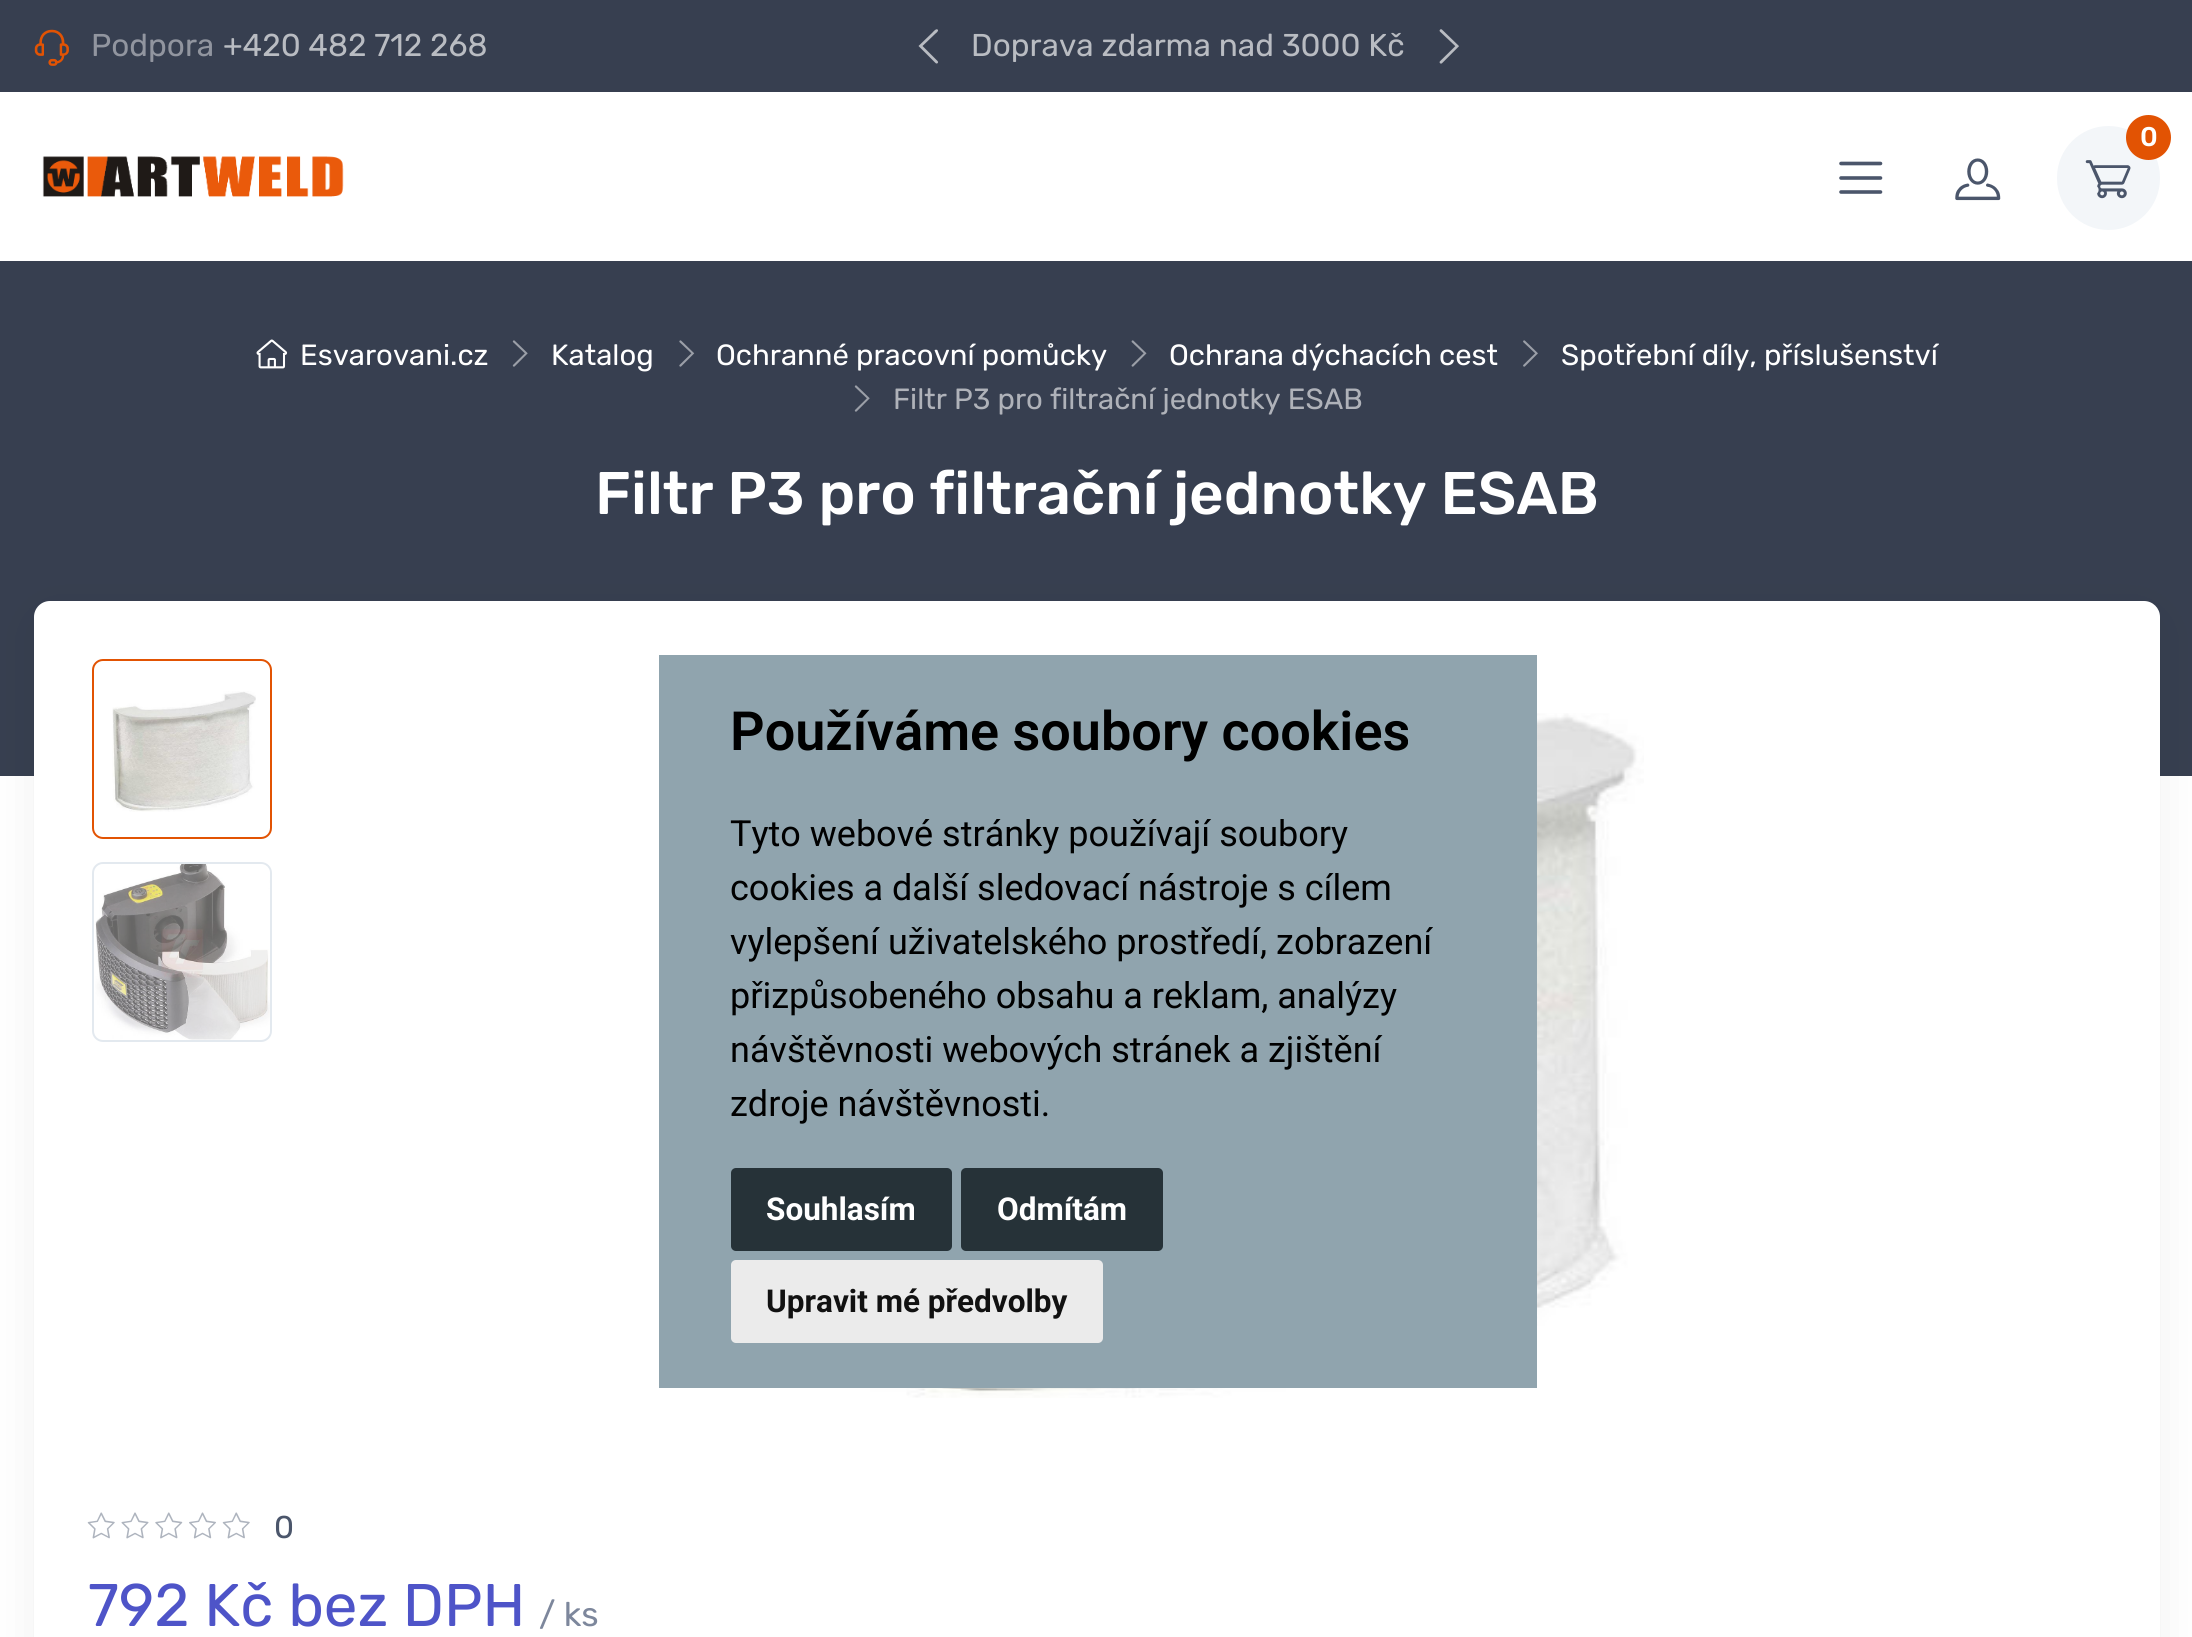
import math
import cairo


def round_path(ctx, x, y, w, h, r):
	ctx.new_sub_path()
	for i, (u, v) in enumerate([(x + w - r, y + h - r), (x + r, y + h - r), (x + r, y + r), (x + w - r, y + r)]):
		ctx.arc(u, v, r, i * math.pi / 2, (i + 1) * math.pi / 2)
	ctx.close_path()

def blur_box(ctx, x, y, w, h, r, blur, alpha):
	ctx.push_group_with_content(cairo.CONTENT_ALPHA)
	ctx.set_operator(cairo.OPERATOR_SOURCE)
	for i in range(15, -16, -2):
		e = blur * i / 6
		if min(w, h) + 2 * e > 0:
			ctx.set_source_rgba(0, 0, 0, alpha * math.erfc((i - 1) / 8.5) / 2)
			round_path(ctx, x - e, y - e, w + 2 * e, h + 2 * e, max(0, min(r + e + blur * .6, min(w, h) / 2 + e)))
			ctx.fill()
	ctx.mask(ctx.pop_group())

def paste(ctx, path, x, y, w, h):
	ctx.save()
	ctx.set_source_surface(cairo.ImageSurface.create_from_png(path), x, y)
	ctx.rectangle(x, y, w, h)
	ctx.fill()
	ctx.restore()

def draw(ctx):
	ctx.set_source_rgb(1, 1, 1)
	ctx.paint()
	ctx.set_source_rgb(0.216, 0.247, 0.314)
	ctx.rectangle(0, 0, 2192, 92)
	ctx.fill()
	paste(ctx, 'media/1.png', 34, 29, 35, 37)
	ctx.select_font_face('Rubik')
	ctx.set_font_size(31.5)
	ctx.set_source_rgb(0.569, 0.584, 0.624)
	ctx.move_to(91, 56)
	ctx.show_text('Podpora')
	ctx.set_source_rgb(0.725, 0.737, 0.761)
	ctx.move_to(223, 56)
	ctx.show_text('+420 482 712 268')
	ctx.new_path()
	ctx.move_to(935.5, 63)
	ctx.curve_to(937, 64.5, 939, 62.5, 937.5, 61)
	ctx.line_to(922.5, 46)
	ctx.line_to(935, 34)
	ctx.curve_to(935.5, 33.5, 938.5, 31.5, 938, 30)
	ctx.curve_to(936.5, 27.5, 933, 32, 932.5, 32.5)
	ctx.line_to(918.5, 46)
	ctx.close_path()
	ctx.fill()
	paste(ctx, 'media/2.png', 1439, 29, 20, 35)
	ctx.move_to(971, 56)
	ctx.show_text('Doprava zdarma nad 3000 Kč')
	ctx.set_source_rgb(0.953, 0.961, 0.976)
	round_path(ctx, 2057, 126, 103, 104, 51.5)
	ctx.fill()
	ctx.set_source_rgb(0.886, 0.325, 0.012)
	ctx.arc(2148.5, 137.5, 22.5, 0, 2 * math.pi)
	ctx.fill()
	ctx.select_font_face('Rubik Medium')
	ctx.set_font_size(27)
	ctx.set_source_rgb(1, 1, 1)
	ctx.move_to(2140, 146)
	ctx.show_text('0')
	paste(ctx, 'media/3.png', 2085, 160, 46, 39)
	ctx.new_path()
	ctx.move_to(1841, 163.5)
	ctx.line_to(1880.5, 163.5)
	ctx.move_to(1841, 178)
	ctx.line_to(1880.5, 178)
	ctx.move_to(1841, 192)
	ctx.line_to(1880.5, 192)
	ctx.set_source_rgb(0.294, 0.337, 0.42)
	ctx.set_line_width(3.6)
	ctx.set_line_cap(cairo.LINE_CAP_ROUND)
	ctx.stroke()
	paste(ctx, 'media/4.png', 1955, 158, 46, 43)
	paste(ctx, 'media/5.png', 42, 156, 302, 41)
	ctx.set_source_rgb(0.216, 0.247, 0.314)
	ctx.rectangle(0, 261, 2192, 515)
	ctx.fill()
	paste(ctx, 'media/6.png', 256, 339, 32, 30)
	ctx.select_font_face('Rubik')
	ctx.set_font_size(29.25)
	ctx.set_source_rgb(1, 1, 1)
	ctx.move_to(300, 365)
	ctx.show_text('Esvarovani.cz')
	paste(ctx, 'media/7.png', 512, 340, 16, 27)
	ctx.move_to(551, 365)
	ctx.show_text('Katalog')
	paste(ctx, 'media/8.png', 679, 340, 16, 27)
	ctx.move_to(716, 365)
	ctx.show_text('Ochranné pracovní pomůcky')
	paste(ctx, 'media/9.png', 1131, 340, 16, 27)
	ctx.move_to(1169, 365)
	ctx.show_text('Ochrana dýchacích cest')
	paste(ctx, 'media/10.png', 1523, 340, 15, 27)
	ctx.move_to(1561, 365)
	ctx.show_text('Spotřební díly, příslušenství')
	paste(ctx, 'media/7.png', 854, 385, 16, 27)
	ctx.set_source_rgb(0.686, 0.698, 0.725)
	ctx.move_to(893, 409)
	ctx.show_text('Filtr P3 pro filtrační jednotky ESAB')
	ctx.select_font_face('Rubik Medium')
	ctx.set_font_size(60)
	ctx.set_source_rgb(1, 1, 1)
	ctx.move_to(595, 514)
	ctx.show_text('Filtr P3 pro filtrační jednotky ESAB')
	ctx.set_source_rgb(0, 0, 0)
	blur_box(ctx, 47, 626, 2100, 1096, 2, 27.5, 0.1)
	ctx.set_source_rgb(1, 1, 1)
	round_path(ctx, 34, 601, 2126, 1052, 16)
	ctx.fill()
	round_path(ctx, 93, 660, 178, 178, 10)
	ctx.set_source_rgb(0.886, 0.325, 0.012)
	ctx.set_line_width(2)
	ctx.set_line_cap(cairo.LINE_CAP_BUTT)
	ctx.stroke()
	paste(ctx, 'media/11.png', 112, 691, 144, 121)
	round_path(ctx, 93, 863, 178, 178, 10)
	ctx.set_source_rgb(0.89, 0.914, 0.937)
	ctx.stroke()
	paste(ctx, 'media/12.png', 95, 864, 175, 176)
	paste(ctx, 'media/13.png', 806, 713, 838, 685)
	paste(ctx, 'media/14.png', 87, 1512, 28, 27)
	paste(ctx, 'media/15.png', 121, 1512, 28, 27)
	paste(ctx, 'media/16.png', 155, 1512, 28, 27)
	paste(ctx, 'media/17.png', 189, 1512, 27, 27)
	paste(ctx, 'media/14.png', 222, 1512, 28, 27)
	ctx.select_font_face('Rubik')
	ctx.set_font_size(31.5)
	ctx.set_source_rgb(0.294, 0.337, 0.42)
	ctx.move_to(274, 1538)
	ctx.show_text('0')
	ctx.set_font_size(60)
	ctx.set_source_rgb(0.306, 0.329, 0.784)
	ctx.move_to(88, 1626)
	ctx.show_text('792 Kč bez DPH')
	ctx.set_font_size(34)
	ctx.set_source_rgb(0.49, 0.529, 0.612)
	ctx.move_to(539, 1626)
	ctx.show_text('/ ks')
	ctx.set_source_rgb(0.565, 0.643, 0.682)
	ctx.rectangle(659, 655, 878, 733)
	ctx.fill()
	ctx.select_font_face('Roboto SemiBold')
	ctx.set_font_size(54)
	ctx.set_source_rgb(0, 0, 0)
	ctx.move_to(730, 750)
	ctx.show_text('Používáme soubory cookies')
	ctx.select_font_face('Roboto')
	ctx.set_font_size(36)
	for x, y, s in [
		(730, 846, 'Tyto webové stránky používají soubory'),
		(730, 900, 'cookies a další sledovací nástroje s cílem'),
		(730, 954, 'vylepšení uživatelského prostředí, zobrazení'),
		(730, 1008, 'přizpůsobeného obsahu a reklam, analýzy'),
		(730, 1062, 'návštěvnosti webových stránek a zjištění'),
		(730, 1116, 'zdroje návštěvnosti.'),
	]:
		ctx.move_to(x, y)
		ctx.show_text(s)
	ctx.set_source_rgb(0.149, 0.196, 0.22)
	round_path(ctx, 731, 1168, 221, 83, 5)
	ctx.fill()
	ctx.select_font_face('Roboto', cairo.FONT_SLANT_NORMAL, cairo.FONT_WEIGHT_BOLD)
	ctx.set_font_size(31.5)
	ctx.set_source_rgb(1, 1, 1)
	ctx.move_to(766, 1220)
	ctx.show_text('Souhlasím')
	ctx.set_source_rgb(0.149, 0.196, 0.22)
	round_path(ctx, 961, 1168, 202, 83, 5)
	ctx.fill()
	ctx.set_source_rgb(1, 1, 1)
	ctx.move_to(997, 1220)
	ctx.show_text('Odmítám')
	ctx.set_source_rgb(0.918, 0.918, 0.918)
	round_path(ctx, 731, 1260, 372, 83, 5)
	ctx.fill()
	ctx.set_source_rgb(0.067, 0.067, 0.067)
	ctx.move_to(766, 1312)
	ctx.show_text('Upravit mé předvolby')


surface = cairo.ImageSurface(cairo.FORMAT_RGB24, 2192, 1637)
ctx = cairo.Context(surface)
options = cairo.FontOptions()
options.set_hint_metrics(cairo.HINT_METRICS_OFF)
options.set_hint_style(cairo.HINT_STYLE_NONE)
ctx.set_font_options(options)
ctx.set_miter_limit(4)
draw(ctx)
surface.write_to_png('image.png')
